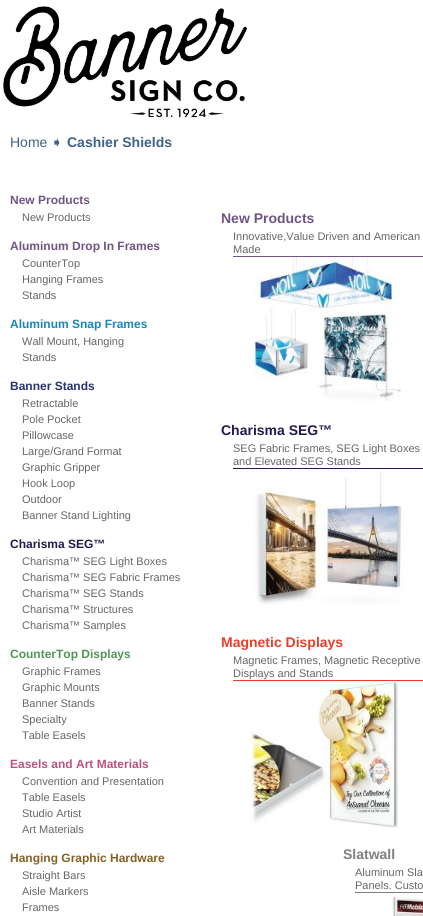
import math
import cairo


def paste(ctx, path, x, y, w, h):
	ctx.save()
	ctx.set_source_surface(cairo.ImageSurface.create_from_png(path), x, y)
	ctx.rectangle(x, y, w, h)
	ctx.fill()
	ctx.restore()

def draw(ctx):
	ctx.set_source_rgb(1, 1, 1)
	ctx.paint()
	paste(ctx, 'media/1.png', 3, 6, 244, 112)
	ctx.select_font_face('Liberation Sans')
	ctx.set_font_size(14)
	ctx.set_source_rgb(0.239, 0.388, 0.545)
	ctx.move_to(10, 147)
	ctx.show_text('Home')
	ctx.select_font_face('DejaVu Sans')
	ctx.move_to(51, 147)
	ctx.show_text('➧')
	ctx.select_font_face('Liberation Sans', cairo.FONT_SLANT_NORMAL, cairo.FONT_WEIGHT_BOLD)
	ctx.move_to(67, 147)
	ctx.show_text('Cashier Shields')
	ctx.set_font_size(12)
	ctx.set_source_rgb(0.439, 0.329, 0.525)
	ctx.move_to(10, 204)
	ctx.show_text('New Products')
	ctx.select_font_face('Liberation Sans')
	ctx.set_font_size(11)
	ctx.set_source_rgb(0.4, 0.4, 0.4)
	ctx.move_to(22, 221)
	ctx.show_text('New Products')
	ctx.select_font_face('Liberation Sans', cairo.FONT_SLANT_NORMAL, cairo.FONT_WEIGHT_BOLD)
	ctx.set_font_size(12)
	ctx.set_source_rgb(0.439, 0.329, 0.525)
	ctx.move_to(10, 250)
	ctx.show_text('Aluminum Drop In Frames')
	ctx.select_font_face('Liberation Sans')
	ctx.set_font_size(11)
	ctx.set_source_rgb(0.4, 0.4, 0.4)
	for x, y, s in [
		(22, 267, 'CounterTop'),
		(22, 283, 'Hanging Frames'),
		(22, 299, 'Stands'),
	]:
		ctx.move_to(x, y)
		ctx.show_text(s)
	ctx.select_font_face('Liberation Sans', cairo.FONT_SLANT_NORMAL, cairo.FONT_WEIGHT_BOLD)
	ctx.set_font_size(12)
	ctx.set_source_rgb(0.09, 0.525, 0.725)
	ctx.move_to(10, 328)
	ctx.show_text('Aluminum Snap Frames')
	ctx.select_font_face('Liberation Sans')
	ctx.set_font_size(11)
	ctx.set_source_rgb(0.4, 0.4, 0.4)
	ctx.move_to(22, 345)
	ctx.show_text('Wall Mount, Hanging')
	ctx.move_to(22, 361)
	ctx.show_text('Stands')
	ctx.select_font_face('Liberation Sans', cairo.FONT_SLANT_NORMAL, cairo.FONT_WEIGHT_BOLD)
	ctx.set_font_size(12)
	ctx.set_source_rgb(0.149, 0.204, 0.447)
	ctx.move_to(10, 390)
	ctx.show_text('Banner Stands')
	ctx.select_font_face('Liberation Sans')
	ctx.set_font_size(11)
	ctx.set_source_rgb(0.4, 0.4, 0.4)
	for x, y, s in [
		(22, 407, 'Retractable'),
		(22, 423, 'Pole Pocket'),
		(22, 439, 'Pillowcase'),
		(22, 455, 'Large/Grand Format'),
		(22, 471, 'Graphic Gripper'),
		(22, 487, 'Hook Loop'),
		(22, 503, 'Outdoor'),
		(22, 519, 'Banner Stand Lighting'),
	]:
		ctx.move_to(x, y)
		ctx.show_text(s)
	ctx.select_font_face('Liberation Sans', cairo.FONT_SLANT_NORMAL, cairo.FONT_WEIGHT_BOLD)
	ctx.set_font_size(12)
	ctx.set_source_rgb(0.125, 0.106, 0.314)
	ctx.move_to(10, 548)
	ctx.show_text('Charisma SEG™')
	ctx.select_font_face('Liberation Sans')
	ctx.set_font_size(11)
	ctx.set_source_rgb(0.4, 0.4, 0.4)
	for x, y, s in [
		(22, 565, 'Charisma™ SEG Light Boxes'),
		(22, 581, 'Charisma™ SEG Fabric Frames'),
		(22, 597, 'Charisma™ SEG Stands'),
		(22, 613, 'Charisma™ Structures'),
		(22, 629, 'Charisma™ Samples'),
	]:
		ctx.move_to(x, y)
		ctx.show_text(s)
	ctx.select_font_face('Liberation Sans', cairo.FONT_SLANT_NORMAL, cairo.FONT_WEIGHT_BOLD)
	ctx.set_font_size(12)
	ctx.set_source_rgb(0.318, 0.588, 0.337)
	ctx.move_to(10, 658)
	ctx.show_text('CounterTop Displays')
	ctx.select_font_face('Liberation Sans')
	ctx.set_font_size(11)
	ctx.set_source_rgb(0.4, 0.4, 0.4)
	for x, y, s in [
		(22, 675, 'Graphic Frames'),
		(22, 691, 'Graphic Mounts'),
		(22, 707, 'Banner Stands'),
		(22, 723, 'Specialty'),
		(22, 739, 'Table Easels'),
	]:
		ctx.move_to(x, y)
		ctx.show_text(s)
	ctx.select_font_face('Liberation Sans', cairo.FONT_SLANT_NORMAL, cairo.FONT_WEIGHT_BOLD)
	ctx.set_font_size(12)
	ctx.set_source_rgb(0.737, 0.325, 0.502)
	ctx.move_to(10, 768)
	ctx.show_text('Easels and Art Materials')
	ctx.select_font_face('Liberation Sans')
	ctx.set_font_size(11)
	ctx.set_source_rgb(0.4, 0.4, 0.4)
	for x, y, s in [
		(22, 785, 'Convention and Presentation'),
		(22, 801, 'Table Easels'),
		(22, 817, 'Studio Artist'),
		(22, 833, 'Art Materials'),
	]:
		ctx.move_to(x, y)
		ctx.show_text(s)
	ctx.select_font_face('Liberation Sans', cairo.FONT_SLANT_NORMAL, cairo.FONT_WEIGHT_BOLD)
	ctx.set_font_size(12)
	ctx.set_source_rgb(0.525, 0.38, 0.149)
	ctx.move_to(10, 862)
	ctx.show_text('Hanging Graphic Hardware')
	ctx.select_font_face('Liberation Sans')
	ctx.set_font_size(11)
	ctx.set_source_rgb(0.4, 0.4, 0.4)
	for x, y, s in [
		(22, 879, 'Straight Bars'),
		(22, 895, 'Aisle Markers'),
		(22, 911, 'Frames'),
	]:
		ctx.move_to(x, y)
		ctx.show_text(s)
	ctx.select_font_face('Liberation Sans', cairo.FONT_SLANT_NORMAL, cairo.FONT_WEIGHT_BOLD)
	ctx.set_font_size(14)
	ctx.set_source_rgb(0.439, 0.329, 0.525)
	ctx.move_to(221, 223)
	ctx.show_text('New Products')
	ctx.rectangle(233, 256, 190, 1)
	ctx.fill()
	ctx.select_font_face('Liberation Sans')
	ctx.set_font_size(11)
	ctx.set_source_rgb(0.4, 0.4, 0.4)
	ctx.move_to(233, 240)
	ctx.show_text('Innovative,Value Driven and American')
	ctx.move_to(233, 253)
	ctx.show_text('Made')
	paste(ctx, 'media/2.png', 254, 257, 147, 144)
	ctx.select_font_face('Liberation Sans', cairo.FONT_SLANT_NORMAL, cairo.FONT_WEIGHT_BOLD)
	ctx.set_font_size(14)
	ctx.set_source_rgb(0.125, 0.106, 0.314)
	ctx.move_to(221, 435)
	ctx.show_text('Charisma SEG™')
	ctx.rectangle(233, 468, 190, 1)
	ctx.fill()
	ctx.select_font_face('Liberation Sans')
	ctx.set_font_size(11)
	ctx.set_source_rgb(0.4, 0.4, 0.4)
	ctx.move_to(233, 452)
	ctx.show_text('SEG Fabric Frames, SEG Light Boxes')
	ctx.move_to(233, 465)
	ctx.show_text('and Elevated SEG Stands')
	paste(ctx, 'media/3.png', 254, 469, 151, 136)
	ctx.select_font_face('Liberation Sans', cairo.FONT_SLANT_NORMAL, cairo.FONT_WEIGHT_BOLD)
	ctx.set_font_size(14)
	ctx.set_source_rgb(0.902, 0.251, 0.165)
	ctx.move_to(221, 647)
	ctx.show_text('Magnetic Displays')
	ctx.rectangle(233, 680, 190, 1)
	ctx.fill()
	ctx.select_font_face('Liberation Sans')
	ctx.set_font_size(11)
	ctx.set_source_rgb(0.4, 0.4, 0.4)
	ctx.move_to(233, 664)
	ctx.show_text('Magnetic Frames, Magnetic Receptive')
	ctx.move_to(233, 677)
	ctx.show_text('Displays and Stands')
	paste(ctx, 'media/4.png', 249, 681, 150, 147)
	ctx.select_font_face('Liberation Sans', cairo.FONT_SLANT_NORMAL, cairo.FONT_WEIGHT_BOLD)
	ctx.set_font_size(14)
	ctx.set_source_rgb(0.494, 0.502, 0.514)
	ctx.move_to(343, 859)
	ctx.show_text('Slatwall')
	ctx.rectangle(355, 892, 68, 1)
	ctx.fill()
	ctx.select_font_face('Liberation Sans')
	ctx.set_font_size(11)
	ctx.set_source_rgb(0.4, 0.4, 0.4)
	ctx.move_to(355, 876)
	ctx.show_text('Aluminum Sla')
	ctx.move_to(355, 889)
	ctx.show_text('Panels. Custo')
	paste(ctx, 'media/5.png', 391, 893, 32, 23)


surface = cairo.ImageSurface(cairo.FORMAT_RGB24, 423, 916)
ctx = cairo.Context(surface)
options = cairo.FontOptions()
options.set_hint_metrics(cairo.HINT_METRICS_OFF)
options.set_hint_style(cairo.HINT_STYLE_NONE)
ctx.set_font_options(options)
ctx.set_miter_limit(4)
draw(ctx)
surface.write_to_png('image.png')
